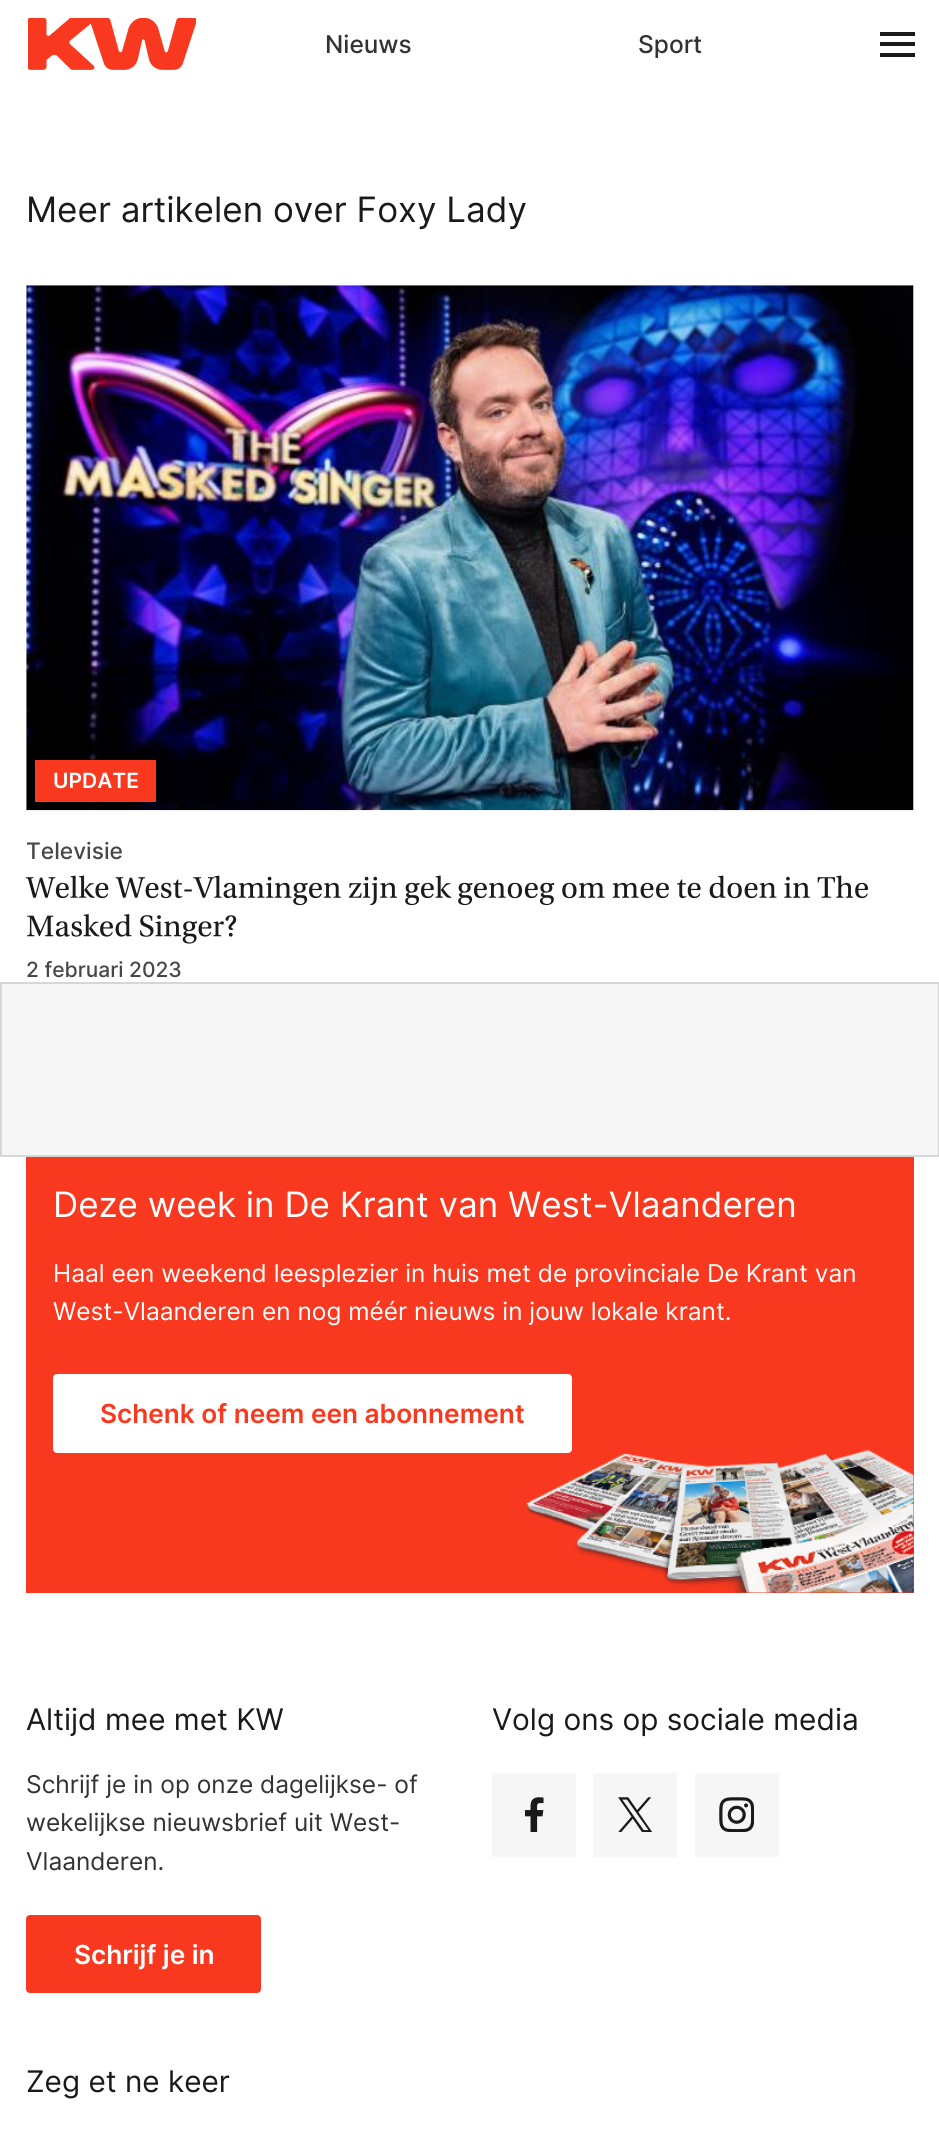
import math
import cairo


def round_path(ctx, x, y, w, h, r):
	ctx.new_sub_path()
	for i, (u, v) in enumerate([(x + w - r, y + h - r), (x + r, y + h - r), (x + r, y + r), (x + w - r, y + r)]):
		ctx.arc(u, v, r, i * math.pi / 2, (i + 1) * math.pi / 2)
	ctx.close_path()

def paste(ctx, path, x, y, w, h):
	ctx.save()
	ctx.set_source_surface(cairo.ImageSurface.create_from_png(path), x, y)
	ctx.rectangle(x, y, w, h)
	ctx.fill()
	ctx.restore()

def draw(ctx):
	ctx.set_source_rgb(1, 1, 1)
	ctx.paint()
	paste(ctx, 'media/1.png', 28, 18, 168, 52)
	ctx.select_font_face('Inter Medium')
	ctx.set_font_size(24.5)
	ctx.set_source_rgb(0.2, 0.2, 0.2)
	ctx.move_to(325, 53)
	ctx.show_text('Nieuws')
	ctx.move_to(638, 53)
	ctx.show_text('Sport')
	ctx.set_source_rgb(0.102, 0.102, 0.102)
	ctx.rectangle(880, 32, 35, 4)
	ctx.rectangle(880, 42, 35, 4)
	ctx.rectangle(880, 53, 35, 4)
	ctx.fill()
	ctx.select_font_face('Inter')
	ctx.set_font_size(35)
	ctx.move_to(26, 222)
	ctx.show_text('Meer artikelen over Foxy Lady')
	ctx.set_source_rgb(0.961, 0.961, 0.961)
	ctx.rectangle(26, 285, 888, 525)
	ctx.fill()
	paste(ctx, 'media/2.png', 26, 285, 888, 526)
	ctx.set_source_rgb(0.976, 0.224, 0.122)
	ctx.rectangle(35, 760, 121, 42)
	ctx.fill()
	ctx.select_font_face('Inter SemiBold')
	ctx.set_font_size(21)
	ctx.set_source_rgb(1, 1, 1)
	ctx.move_to(53, 788)
	ctx.show_text('UPDATE')
	ctx.select_font_face('Inter Medium')
	ctx.set_font_size(22.75)
	ctx.set_source_rgb(0.278, 0.278, 0.278)
	ctx.move_to(26, 859)
	ctx.show_text('Televisie')
	paste(ctx, 'media/3.png', 25, 875, 844, 31)
	paste(ctx, 'media/4.png', 27, 914, 210, 30)
	ctx.set_font_size(21)
	ctx.move_to(26, 977)
	ctx.show_text('2 februari 2023')
	ctx.set_source_rgb(0.961, 0.961, 0.961)
	ctx.rectangle(1, 983, 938, 173)
	ctx.fill_preserve()
	ctx.set_source_rgb(0.839, 0.839, 0.839)
	ctx.stroke()
	ctx.set_source_rgb(0.976, 0.224, 0.122)
	ctx.rectangle(26, 1157, 888, 436)
	ctx.fill()
	ctx.select_font_face('Inter')
	ctx.set_font_size(35)
	ctx.set_source_rgb(1, 1, 1)
	ctx.move_to(53, 1217)
	ctx.show_text('Deze week in De Krant van West-Vlaanderen')
	ctx.set_font_size(24.5)
	ctx.move_to(53, 1282)
	ctx.show_text('Haal een weekend leesplezier in huis met de provinciale De Krant van')
	ctx.move_to(53, 1320)
	ctx.show_text('West-Vlaanderen en nog méér nieuws in jouw lokale krant.')
	paste(ctx, 'media/5.png', 526, 1449, 388, 144)
	round_path(ctx, 55, 1376, 515, 75, 2)
	ctx.fill_preserve()
	ctx.set_line_width(4)
	ctx.stroke()
	ctx.select_font_face('Inter SemiBold')
	ctx.set_font_size(26.25)
	ctx.set_source_rgb(0.976, 0.224, 0.122)
	ctx.move_to(100, 1423)
	ctx.show_text('Schenk of neem een abonnement')
	ctx.select_font_face('Inter')
	ctx.set_font_size(29.75)
	ctx.set_source_rgb(0.102, 0.102, 0.102)
	ctx.move_to(26, 1730)
	ctx.show_text('Altijd mee met KW')
	ctx.set_font_size(24.5)
	ctx.set_source_rgb(0.2, 0.2, 0.2)
	for x, y, s in [
		(26, 1793, 'Schrijf je in op onze dagelijkse- of'),
		(26, 1831, 'wekelijkse nieuwsbrief uit West-'),
		(26, 1870, 'Vlaanderen.'),
	]:
		ctx.move_to(x, y)
		ctx.show_text(s)
	ctx.set_source_rgb(0.976, 0.224, 0.122)
	round_path(ctx, 28, 1917, 231, 74, 2)
	ctx.fill_preserve()
	ctx.stroke()
	ctx.select_font_face('Inter SemiBold')
	ctx.set_font_size(26.25)
	ctx.set_source_rgb(1, 1, 1)
	ctx.move_to(74, 1964)
	ctx.show_text('Schrijf je in')
	ctx.select_font_face('Inter')
	ctx.set_font_size(29.75)
	ctx.set_source_rgb(0.102, 0.102, 0.102)
	ctx.move_to(492, 1730)
	ctx.show_text('Volg ons op sociale media')
	ctx.set_source_rgb(0.961, 0.961, 0.961)
	ctx.rectangle(492, 1773, 84, 84)
	ctx.fill()
	paste(ctx, 'media/6.png', 525, 1797, 19, 35)
	ctx.rectangle(593, 1773, 84, 84)
	ctx.fill()
	paste(ctx, 'media/7.png', 618, 1797, 34, 35)
	ctx.rectangle(695, 1773, 84, 84)
	ctx.fill()
	paste(ctx, 'media/8.png', 719, 1797, 35, 35)
	ctx.set_source_rgb(0.102, 0.102, 0.102)
	ctx.move_to(26, 2092)
	ctx.show_text('Zeg et ne keer')


surface = cairo.ImageSurface(cairo.FORMAT_RGB24, 939, 2146)
ctx = cairo.Context(surface)
options = cairo.FontOptions()
options.set_hint_metrics(cairo.HINT_METRICS_OFF)
options.set_hint_style(cairo.HINT_STYLE_NONE)
ctx.set_font_options(options)
ctx.set_miter_limit(4)
draw(ctx)
surface.write_to_png('image.png')
